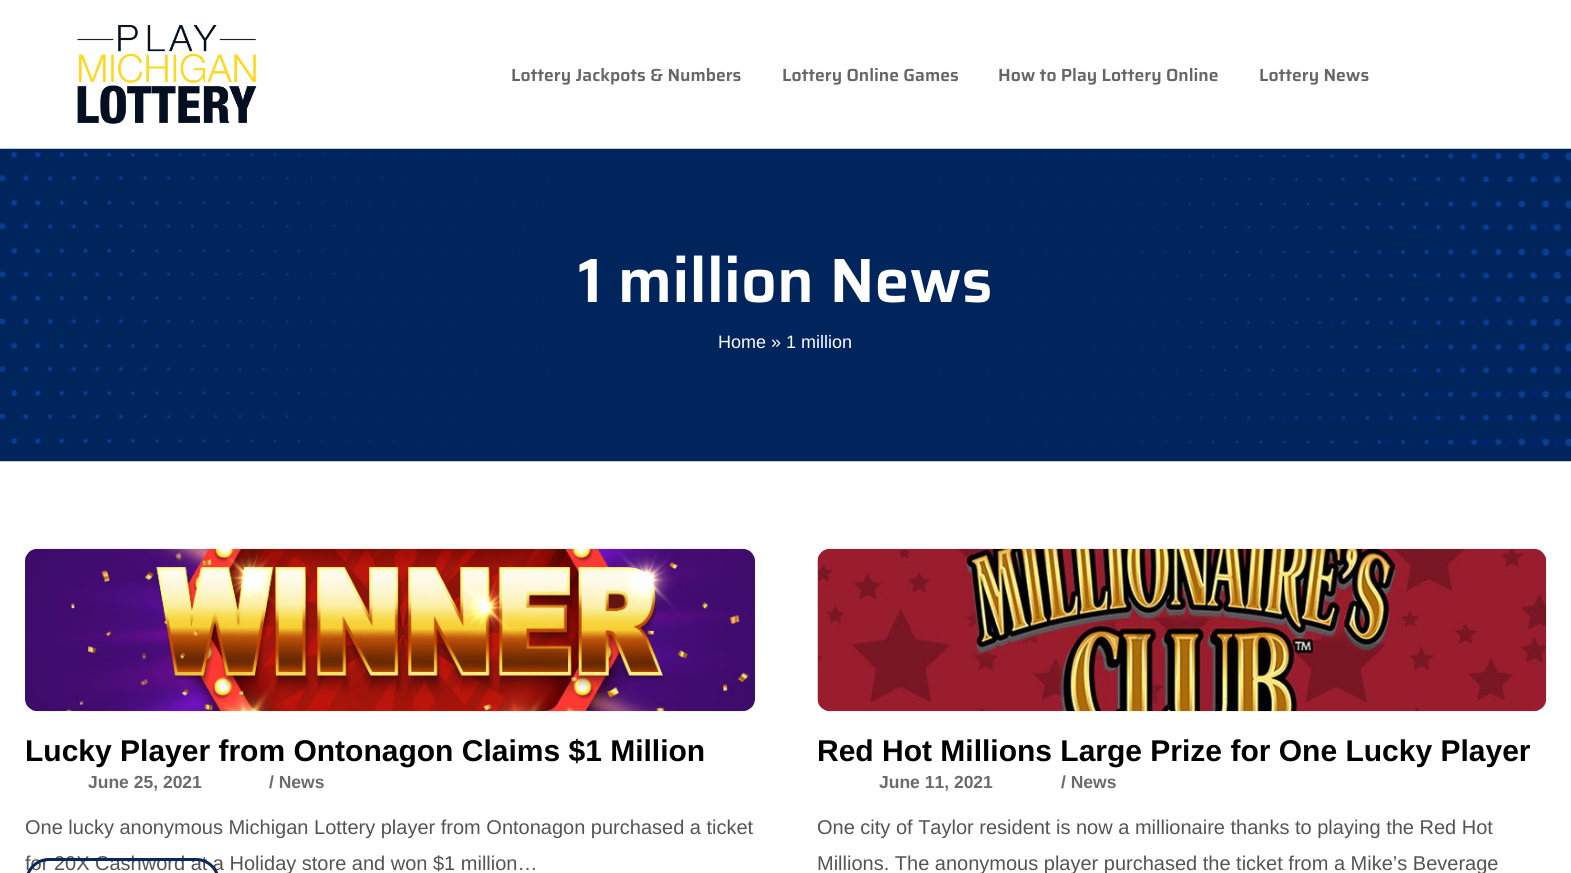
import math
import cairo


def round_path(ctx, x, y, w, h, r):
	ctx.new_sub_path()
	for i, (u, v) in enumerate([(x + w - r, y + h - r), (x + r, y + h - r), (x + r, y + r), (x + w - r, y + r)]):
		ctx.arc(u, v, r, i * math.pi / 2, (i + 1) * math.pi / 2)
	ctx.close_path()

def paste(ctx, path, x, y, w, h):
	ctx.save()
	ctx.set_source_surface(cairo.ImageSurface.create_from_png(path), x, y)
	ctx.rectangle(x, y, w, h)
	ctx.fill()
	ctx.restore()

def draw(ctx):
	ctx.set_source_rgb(1, 1, 1)
	ctx.paint()
	paste(ctx, 'media/1.png', 77, 25, 180, 99)
	ctx.select_font_face('Saira SemiBold')
	ctx.set_font_size(17.5)
	ctx.set_source_rgb(0.4, 0.4, 0.4)
	for x, y, s in [
		(511, 81, 'Lottery Jackpots & Numbers'),
		(782, 81, 'Lottery Online Games'),
		(998, 81, 'How to Play Lottery Online'),
		(1259, 81, 'Lottery News'),
	]:
		ctx.move_to(x, y)
		ctx.show_text(s)
	paste(ctx, 'media/2.png', 0, 148, 1571, 314)
	ctx.set_font_size(62.5)
	ctx.set_source_rgb(1, 1, 1)
	ctx.move_to(578, 302)
	ctx.show_text('1 million News')
	ctx.select_font_face('Liberation Sans')
	ctx.set_font_size(18)
	ctx.move_to(718, 348)
	ctx.show_text('Home » 1 million')
	paste(ctx, 'media/3.png', 25, 548, 730, 164)
	ctx.select_font_face('Liberation Sans', cairo.FONT_SLANT_NORMAL, cairo.FONT_WEIGHT_BOLD)
	ctx.set_font_size(30)
	ctx.set_source_rgb(0, 0, 0)
	ctx.move_to(25, 761)
	ctx.show_text('Lucky Player from Ontonagon Claims $1 Million')
	ctx.set_font_size(17.5)
	ctx.set_source_rgb(0.416, 0.42, 0.427)
	ctx.move_to(88, 788)
	ctx.show_text('June 25, 2021')
	ctx.move_to(269, 788)
	ctx.show_text('/ News')
	ctx.select_font_face('Liberation Sans')
	ctx.set_font_size(20)
	ctx.set_source_rgb(0.333, 0.325, 0.325)
	ctx.move_to(25, 834)
	ctx.show_text('One lucky anonymous Michigan Lottery player from Ontonagon purchased a ticket')
	ctx.move_to(25, 870)
	ctx.show_text('for 20X Cashword at a Holiday store and won $1 million…')
	round_path(ctx, 26.5, 859.5, 192, 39, 22.5)
	ctx.set_source_rgb(0.035, 0.153, 0.353)
	ctx.set_line_width(3)
	ctx.stroke()
	paste(ctx, 'media/4.png', 817, 548, 730, 164)
	ctx.select_font_face('Liberation Sans', cairo.FONT_SLANT_NORMAL, cairo.FONT_WEIGHT_BOLD)
	ctx.set_font_size(30)
	ctx.set_source_rgb(0, 0, 0)
	ctx.move_to(817, 761)
	ctx.show_text('Red Hot Millions Large Prize for One Lucky Player')
	ctx.set_font_size(17.5)
	ctx.set_source_rgb(0.416, 0.42, 0.427)
	ctx.move_to(879, 788)
	ctx.show_text('June 11, 2021')
	ctx.move_to(1061, 788)
	ctx.show_text('/ News')
	ctx.select_font_face('Liberation Sans')
	ctx.set_font_size(20)
	ctx.set_source_rgb(0.333, 0.325, 0.325)
	ctx.move_to(817, 834)
	ctx.show_text('One city of Taylor resident is now a millionaire thanks to playing the Red Hot')
	ctx.move_to(817, 870)
	ctx.show_text('Millions. The anonymous player purchased the ticket from a Mike’s Beverage')


surface = cairo.ImageSurface(cairo.FORMAT_RGB24, 1571, 873)
ctx = cairo.Context(surface)
options = cairo.FontOptions()
options.set_hint_metrics(cairo.HINT_METRICS_OFF)
options.set_hint_style(cairo.HINT_STYLE_NONE)
ctx.set_font_options(options)
ctx.set_miter_limit(4)
draw(ctx)
surface.write_to_png('image.png')
